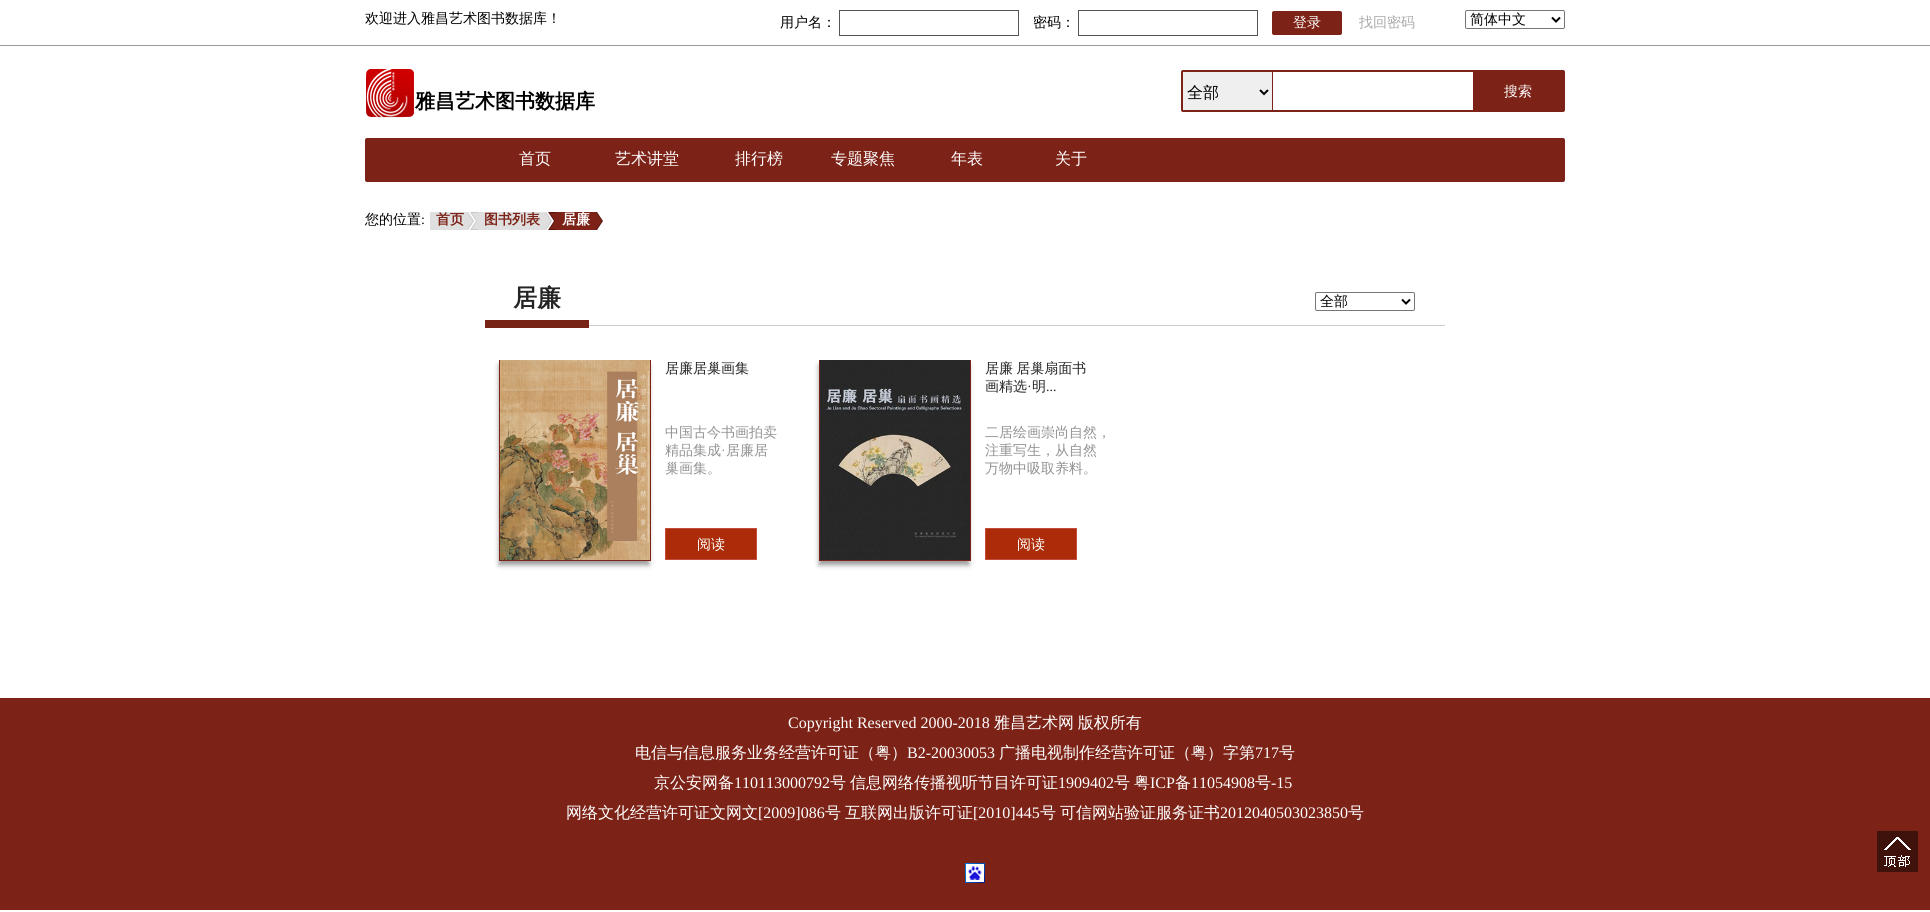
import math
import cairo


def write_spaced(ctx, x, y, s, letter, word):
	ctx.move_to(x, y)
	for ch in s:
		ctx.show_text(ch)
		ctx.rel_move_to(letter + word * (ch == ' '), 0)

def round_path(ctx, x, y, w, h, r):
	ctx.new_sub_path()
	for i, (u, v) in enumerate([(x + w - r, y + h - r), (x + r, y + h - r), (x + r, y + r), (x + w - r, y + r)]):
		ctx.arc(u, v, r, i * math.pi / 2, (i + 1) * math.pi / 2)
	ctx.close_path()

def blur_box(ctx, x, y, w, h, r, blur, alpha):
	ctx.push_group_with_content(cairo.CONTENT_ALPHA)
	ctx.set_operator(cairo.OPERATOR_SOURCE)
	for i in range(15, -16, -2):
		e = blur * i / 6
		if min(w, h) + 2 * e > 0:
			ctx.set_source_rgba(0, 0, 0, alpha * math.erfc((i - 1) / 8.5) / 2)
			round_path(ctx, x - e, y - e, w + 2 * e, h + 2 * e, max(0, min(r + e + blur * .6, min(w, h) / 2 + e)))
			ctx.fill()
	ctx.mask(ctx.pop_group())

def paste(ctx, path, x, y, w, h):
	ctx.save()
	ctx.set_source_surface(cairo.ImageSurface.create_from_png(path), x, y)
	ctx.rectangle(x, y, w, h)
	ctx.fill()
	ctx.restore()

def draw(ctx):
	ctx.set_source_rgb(1, 1, 1)
	ctx.paint()
	ctx.set_source_rgb(0.6, 0.6, 0.6)
	ctx.rectangle(0, 45, 1930, 1)
	ctx.fill()
	ctx.select_font_face('WenQuanYi Zen Hei Medium')
	ctx.set_font_size(14)
	ctx.set_source_rgb(0, 0, 0)
	ctx.move_to(365, 23)
	ctx.show_text('欢迎进入雅昌艺术图书数据库！')
	ctx.move_to(780, 27)
	ctx.show_text('用户名：')
	ctx.rectangle(839.5, 10.5, 179, 25)
	ctx.set_source_rgb(0.333, 0.333, 0.333)
	ctx.set_line_width(1)
	ctx.stroke()
	ctx.set_source_rgb(0, 0, 0)
	ctx.move_to(1033, 27)
	ctx.show_text('密码：')
	ctx.rectangle(1078.5, 10.5, 179, 25)
	ctx.set_source_rgb(0.333, 0.333, 0.333)
	ctx.stroke()
	ctx.set_source_rgb(0.486, 0.133, 0.086)
	round_path(ctx, 1272, 11, 70, 24, 2)
	ctx.fill()
	ctx.set_source_rgb(1, 1, 1)
	ctx.move_to(1293, 27)
	ctx.show_text('登录')
	ctx.set_source_rgb(0.663, 0.663, 0.663)
	ctx.move_to(1359, 27)
	ctx.show_text('找回密码')
	round_path(ctx, 1465.5, 10.5, 99, 18, 1.5)
	ctx.set_source_rgb(0.463, 0.463, 0.463)
	ctx.stroke()
	ctx.new_path()
	ctx.move_to(1552, 17.5)
	ctx.line_to(1556, 21.5)
	ctx.line_to(1560, 17.5)
	ctx.set_source_rgb(0, 0, 0)
	ctx.set_line_width(2)
	ctx.stroke()
	ctx.move_to(1470, 24)
	ctx.show_text('简体中文')
	paste(ctx, 'media/1.png', 366, 69, 48, 49)
	ctx.select_font_face('WenQuanYi Zen Hei', cairo.FONT_SLANT_NORMAL, cairo.FONT_WEIGHT_BOLD)
	ctx.set_font_size(20)
	ctx.move_to(415, 108)
	ctx.show_text('雅昌艺术图书数据库')
	round_path(ctx, 1182, 71, 382, 40, 1)
	ctx.set_source_rgb(0.486, 0.133, 0.086)
	ctx.stroke()
	ctx.set_source_rgb(0.937, 0.937, 0.937)
	ctx.rectangle(1183, 72, 89, 38)
	ctx.fill()
	ctx.set_source_rgb(0.486, 0.133, 0.086)
	ctx.rectangle(1272, 72, 1, 38)
	ctx.fill()
	ctx.new_path()
	ctx.move_to(1260, 90)
	ctx.line_to(1264, 94)
	ctx.line_to(1268, 90)
	ctx.set_source_rgb(0, 0, 0)
	ctx.stroke()
	ctx.select_font_face('WenQuanYi Zen Hei Medium')
	ctx.set_font_size(16)
	ctx.move_to(1187, 98)
	ctx.show_text('全部')
	ctx.set_source_rgb(0.486, 0.133, 0.086)
	ctx.rectangle(1473, 72, 90, 38)
	ctx.fill()
	ctx.set_font_size(14)
	ctx.set_source_rgb(1, 1, 1)
	ctx.move_to(1504, 96)
	ctx.show_text('搜索')
	ctx.set_source_rgb(0.486, 0.133, 0.09)
	round_path(ctx, 365, 138, 1200, 44, 2)
	ctx.fill()
	ctx.set_font_size(16)
	ctx.set_source_rgb(1, 1, 1)
	for x, y, s in [
		(519, 164, '首页'),
		(615, 164, '艺术讲堂'),
		(735, 164, '排行榜'),
		(831, 164, '专题聚焦'),
		(951, 164, '年表'),
		(1055, 164, '关于'),
	]:
		ctx.move_to(x, y)
		ctx.show_text(s)
	ctx.set_font_size(14)
	ctx.set_source_rgb(0, 0, 0)
	ctx.move_to(365, 224)
	ctx.show_text('您的位置')
	ctx.select_font_face('Liberation Serif')
	ctx.move_to(421, 224)
	ctx.show_text(':')
	ctx.set_source_rgb(0.875, 0.875, 0.875)
	ctx.rectangle(430, 212, 38, 18)
	ctx.fill()
	ctx.select_font_face('WenQuanYi Zen Hei', cairo.FONT_SLANT_NORMAL, cairo.FONT_WEIGHT_BOLD)
	ctx.set_source_rgb(0.486, 0.133, 0.09)
	ctx.move_to(436, 224)
	ctx.show_text('首页')
	paste(ctx, 'media/2.png', 468, 212, 10, 18)
	ctx.set_source_rgb(0.875, 0.875, 0.875)
	ctx.rectangle(478, 212, 68, 18)
	ctx.fill()
	ctx.set_source_rgb(0.486, 0.133, 0.09)
	ctx.move_to(484, 224)
	ctx.show_text('图书列表')
	paste(ctx, 'media/3.png', 546, 212, 10, 18)
	ctx.set_source_rgb(0.486, 0.133, 0.086)
	ctx.rectangle(556, 212, 40, 18)
	ctx.fill()
	ctx.set_source_rgb(1, 1, 1)
	ctx.move_to(562, 224)
	ctx.show_text('居廉')
	paste(ctx, 'media/4.png', 596, 212, 7, 18)
	ctx.set_source_rgb(0.812, 0.808, 0.808)
	ctx.rectangle(589, 325, 856, 1)
	ctx.fill()
	ctx.set_source_rgb(0.467, 0.137, 0.086)
	ctx.rectangle(485, 320, 104, 8)
	ctx.fill()
	ctx.set_font_size(24)
	ctx.set_source_rgb(0.141, 0.141, 0.141)
	ctx.move_to(513, 306)
	ctx.show_text('居廉')
	round_path(ctx, 1315.5, 292.5, 99, 18, 1.5)
	ctx.set_source_rgb(0.463, 0.463, 0.463)
	ctx.set_line_width(1)
	ctx.stroke()
	ctx.new_path()
	ctx.move_to(1402, 299.5)
	ctx.line_to(1406, 303.5)
	ctx.line_to(1410, 299.5)
	ctx.set_source_rgb(0, 0, 0)
	ctx.set_line_width(2)
	ctx.stroke()
	ctx.select_font_face('WenQuanYi Zen Hei Medium')
	ctx.set_font_size(14)
	ctx.move_to(1320, 306)
	ctx.show_text('全部')
	ctx.set_source_rgb(0.6, 0.6, 0.6)
	blur_box(ctx, 499, 365, 150, 200, 0, 2.5, 1)
	ctx.save()
	ctx.rectangle(485, 360, 960, 252)
	ctx.clip()
	ctx.rectangle(499.5, 359.5, 151, 201)
	ctx.set_source_rgb(0.486, 0.133, 0.086)
	ctx.set_line_width(1)
	ctx.stroke()
	ctx.restore()
	paste(ctx, 'media/5.png', 500, 360, 150, 200)
	ctx.set_source_rgb(0.141, 0.141, 0.141)
	ctx.move_to(665, 373)
	ctx.show_text('居廉居巢画集')
	ctx.set_source_rgb(0.573, 0.573, 0.573)
	ctx.move_to(665, 437)
	ctx.show_text('中国古今书画拍卖')
	ctx.move_to(665, 455)
	ctx.show_text('精品集成')
	ctx.select_font_face('Liberation Serif')
	ctx.move_to(721, 455)
	ctx.show_text('·')
	ctx.select_font_face('WenQuanYi Zen Hei Medium')
	ctx.move_to(726, 455)
	ctx.show_text('居廉居')
	ctx.move_to(665, 473)
	ctx.show_text('巢画集。')
	ctx.set_source_rgb(0.675, 0.169, 0.035)
	ctx.rectangle(665.5, 528.5, 91, 31)
	ctx.fill_preserve()
	ctx.set_source_rgb(0.765, 0.302, 0.235)
	ctx.set_line_width(1)
	ctx.stroke()
	ctx.set_source_rgb(1, 1, 1)
	ctx.move_to(697, 549)
	ctx.show_text('阅读')
	ctx.set_source_rgb(0.6, 0.6, 0.6)
	blur_box(ctx, 819, 365, 150, 200, 0, 2.5, 1)
	ctx.save()
	ctx.rectangle(485, 360, 960, 252)
	ctx.clip()
	ctx.rectangle(819.5, 359.5, 151, 201)
	ctx.set_source_rgb(0.486, 0.133, 0.086)
	ctx.stroke()
	ctx.restore()
	paste(ctx, 'media/6.png', 820, 360, 150, 200)
	ctx.set_source_rgb(0.141, 0.141, 0.141)
	write_spaced(ctx, 985, 373, '居廉 居巢扇面书', 0, -1)
	ctx.move_to(985, 391)
	ctx.show_text('画精选')
	ctx.select_font_face('Liberation Serif')
	ctx.move_to(1027, 391)
	ctx.show_text('·')
	ctx.select_font_face('WenQuanYi Zen Hei Medium')
	ctx.move_to(1032, 391)
	ctx.show_text('明')
	ctx.select_font_face('Liberation Serif')
	ctx.move_to(1046, 391)
	ctx.show_text('...')
	ctx.select_font_face('WenQuanYi Zen Hei Medium')
	ctx.set_source_rgb(0.573, 0.573, 0.573)
	for x, y, s in [
		(985, 437, '二居绘画崇尚自然，'),
		(985, 455, '注重写生，从自然'),
		(985, 473, '万物中吸取养料。'),
	]:
		ctx.move_to(x, y)
		ctx.show_text(s)
	ctx.set_source_rgb(0.675, 0.169, 0.035)
	ctx.rectangle(985.5, 528.5, 91, 31)
	ctx.fill_preserve()
	ctx.set_source_rgb(0.765, 0.302, 0.235)
	ctx.stroke()
	ctx.set_source_rgb(1, 1, 1)
	ctx.move_to(1017, 549)
	ctx.show_text('阅读')
	ctx.set_source_rgb(0.486, 0.133, 0.086)
	ctx.rectangle(0, 698, 1930, 212)
	ctx.fill()
	paste(ctx, 'media/7.png', 1877, 831, 41, 41)
	ctx.select_font_face('Liberation Serif')
	ctx.set_font_size(16)
	ctx.set_source_rgb(1, 1, 1)
	ctx.move_to(788, 728)
	ctx.show_text('Copyright Reserved 2000-2018')
	ctx.select_font_face('WenQuanYi Zen Hei Medium')
	write_spaced(ctx, 994, 728, '雅昌艺术网 版权所有', 0, -1)
	ctx.move_to(635, 758)
	ctx.show_text('电信与信息服务业务经营许可证（粤）')
	ctx.select_font_face('Liberation Serif')
	ctx.move_to(907, 758)
	ctx.show_text('B2-20030053')
	ctx.select_font_face('WenQuanYi Zen Hei Medium')
	ctx.move_to(999, 758)
	ctx.show_text('广播电视制作经营许可证（粤）字第')
	ctx.select_font_face('Liberation Serif')
	ctx.move_to(1255, 758)
	ctx.show_text('717')
	ctx.select_font_face('WenQuanYi Zen Hei Medium')
	ctx.move_to(1279, 758)
	ctx.show_text('号')
	ctx.move_to(654, 788)
	ctx.show_text('京公安网备')
	ctx.select_font_face('Liberation Serif')
	ctx.move_to(734, 788)
	ctx.show_text('110113000792')
	ctx.select_font_face('WenQuanYi Zen Hei Medium')
	ctx.move_to(830, 788)
	ctx.show_text('号')
	ctx.move_to(850, 788)
	ctx.show_text('信息网络传播视听节目许可证')
	ctx.select_font_face('Liberation Serif')
	ctx.move_to(1058, 788)
	ctx.show_text('1909402')
	ctx.select_font_face('WenQuanYi Zen Hei Medium')
	ctx.move_to(1114, 788)
	ctx.show_text('号')
	ctx.move_to(1134, 788)
	ctx.show_text('粤')
	ctx.select_font_face('Liberation Serif')
	ctx.move_to(1150, 788)
	ctx.show_text('ICP')
	ctx.select_font_face('WenQuanYi Zen Hei Medium')
	ctx.move_to(1175, 788)
	ctx.show_text('备')
	ctx.select_font_face('Liberation Serif')
	ctx.move_to(1191, 788)
	ctx.show_text('11054908')
	ctx.select_font_face('WenQuanYi Zen Hei Medium')
	ctx.move_to(1255, 788)
	ctx.show_text('号')
	ctx.select_font_face('Liberation Serif')
	ctx.move_to(1271, 788)
	ctx.show_text('-15')
	ctx.select_font_face('WenQuanYi Zen Hei Medium')
	ctx.move_to(566, 818)
	ctx.show_text('网络文化经营许可证文网文')
	ctx.select_font_face('Liberation Serif')
	ctx.move_to(758, 818)
	ctx.show_text('[2009]086')
	ctx.select_font_face('WenQuanYi Zen Hei Medium')
	ctx.move_to(825, 818)
	ctx.show_text('号')
	ctx.move_to(845, 818)
	ctx.show_text('互联网出版许可证')
	ctx.select_font_face('Liberation Serif')
	ctx.move_to(973, 818)
	ctx.show_text('[2010]445')
	ctx.select_font_face('WenQuanYi Zen Hei Medium')
	ctx.move_to(1040, 818)
	ctx.show_text('号')
	ctx.move_to(1060, 818)
	ctx.show_text('可信网站验证服务证书')
	ctx.select_font_face('Liberation Serif')
	ctx.move_to(1220, 818)
	ctx.show_text('2012040503023850')
	ctx.select_font_face('WenQuanYi Zen Hei Medium')
	ctx.move_to(1348, 818)
	ctx.show_text('号')
	paste(ctx, 'media/8.png', 965, 863, 20, 20)


surface = cairo.ImageSurface(cairo.FORMAT_RGB24, 1930, 912)
ctx = cairo.Context(surface)
options = cairo.FontOptions()
options.set_hint_metrics(cairo.HINT_METRICS_OFF)
options.set_hint_style(cairo.HINT_STYLE_NONE)
ctx.set_font_options(options)
ctx.set_miter_limit(4)
draw(ctx)
surface.write_to_png('image.png')
